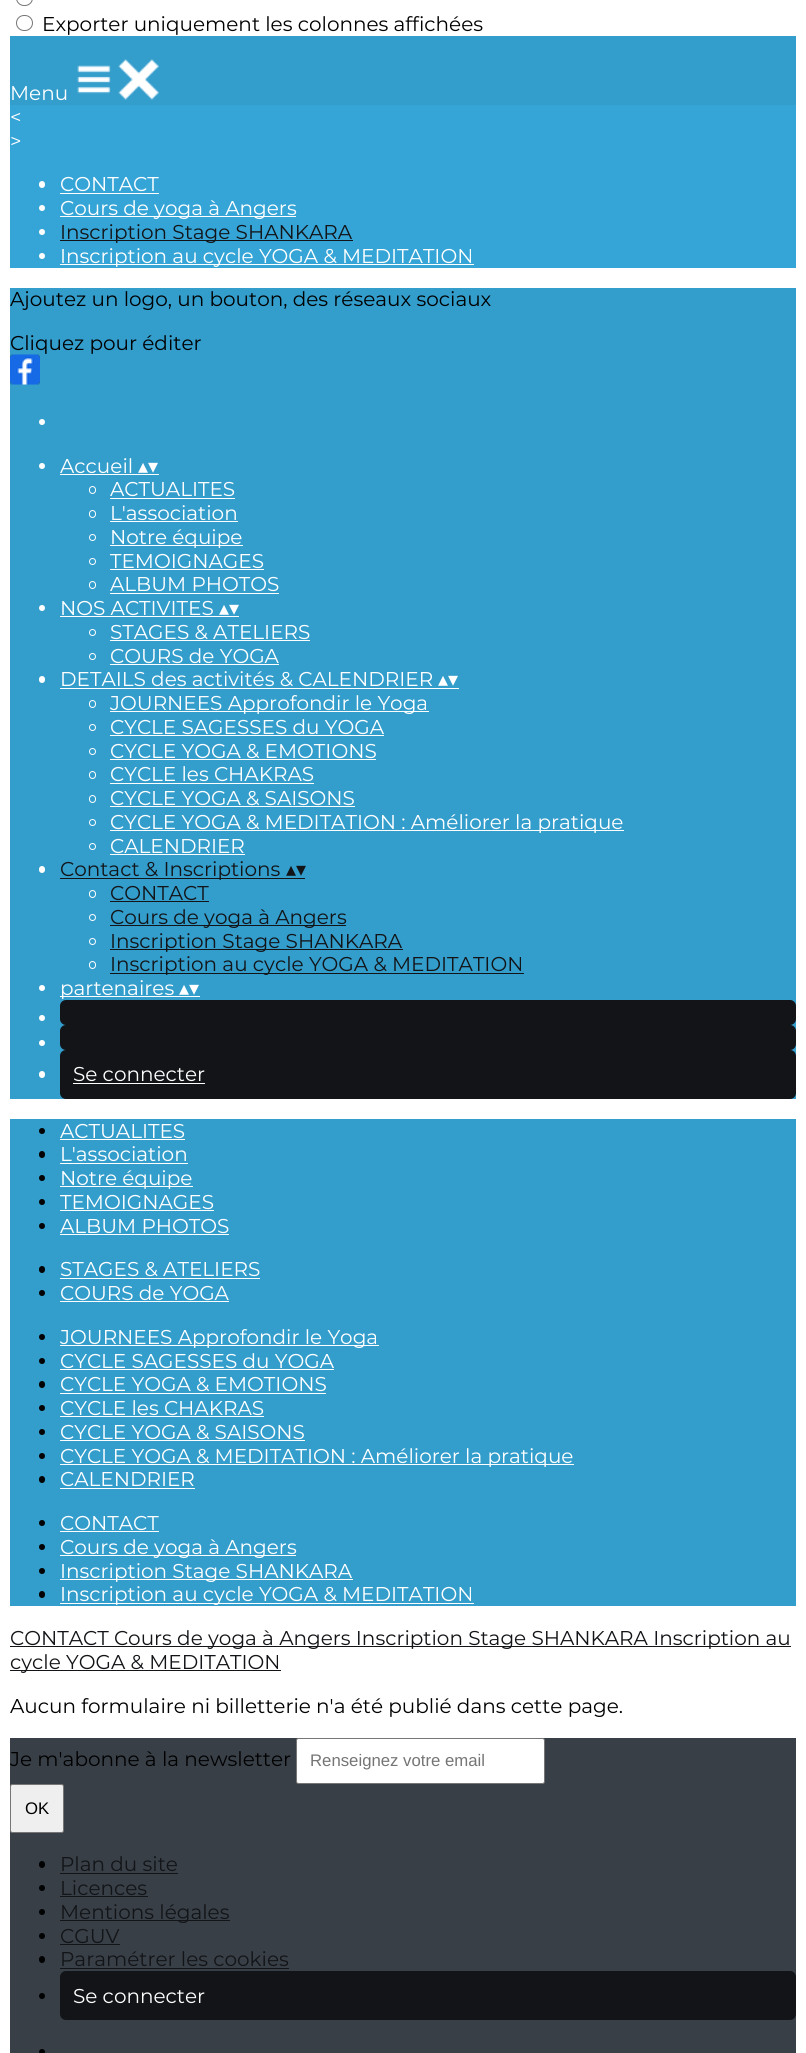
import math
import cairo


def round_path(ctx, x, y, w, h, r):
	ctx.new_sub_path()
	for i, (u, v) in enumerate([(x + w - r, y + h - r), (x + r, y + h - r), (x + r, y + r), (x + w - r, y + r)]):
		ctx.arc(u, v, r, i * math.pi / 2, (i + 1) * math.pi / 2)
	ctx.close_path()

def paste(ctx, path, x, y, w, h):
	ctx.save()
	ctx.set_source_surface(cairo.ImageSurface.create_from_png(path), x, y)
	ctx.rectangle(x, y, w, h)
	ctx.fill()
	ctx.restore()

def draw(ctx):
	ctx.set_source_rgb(1, 1, 1)
	ctx.paint()
	round_path(ctx, 16.5, -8.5, 16, 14, 7.5)
	ctx.set_source_rgb(0.463, 0.463, 0.463)
	ctx.set_line_width(1)
	ctx.stroke()
	round_path(ctx, 16.5, 15.5, 16, 15, 7.5)
	ctx.stroke()
	ctx.select_font_face('Montserrat')
	ctx.set_font_size(20)
	ctx.set_source_rgb(0, 0, 0)
	ctx.move_to(42, 31)
	ctx.show_text('Exporter uniquement les colonnes affichées')
	ctx.set_source_rgb(0.2, 0.616, 0.8)
	ctx.rectangle(10, 36, 786, 69)
	ctx.fill()
	ctx.set_source_rgb(1, 1, 1)
	ctx.move_to(10, 100)
	ctx.show_text('Menu')
	paste(ctx, 'media/1.png', 77, 65, 34, 29)
	paste(ctx, 'media/2.png', 118, 59, 41, 41)
	ctx.set_source_rgb(0.208, 0.643, 0.839)
	ctx.rectangle(10, 105, 786, 163)
	ctx.fill()
	ctx.set_source_rgb(1, 1, 1)
	ctx.move_to(10, 124)
	ctx.show_text('<')
	ctx.move_to(10, 148)
	ctx.show_text('>')
	round_path(ctx, 39, 181, 6, 7, 3)
	ctx.fill()
	ctx.move_to(60, 191)
	ctx.show_text('CONTACT')
	ctx.rectangle(60, 193, 99, 1)
	ctx.fill()
	ctx.arc(42, 208, 3, 0, 2 * math.pi)
	ctx.fill()
	ctx.rectangle(60, 216, 236, 1)
	ctx.fill()
	ctx.move_to(60, 215)
	ctx.show_text('Cours de yoga à Angers')
	ctx.new_path()
	ctx.arc(42, 232, 3, 0, 2 * math.pi)
	ctx.fill()
	ctx.set_source_rgb(0.071, 0.082, 0.09)
	ctx.rectangle(60, 240, 293, 1)
	ctx.fill()
	ctx.move_to(60, 239)
	ctx.show_text('Inscription Stage SHANKARA')
	ctx.set_source_rgb(1, 1, 1)
	ctx.new_path()
	ctx.arc(42, 256, 3, 0, 2 * math.pi)
	ctx.fill()
	ctx.rectangle(60, 264, 414, 1)
	ctx.fill()
	ctx.move_to(60, 263)
	ctx.show_text('Inscription au cycle YOGA & MEDITATION')
	ctx.set_source_rgb(0.2, 0.616, 0.8)
	ctx.rectangle(10, 288, 786, 811)
	ctx.fill()
	ctx.set_source_rgb(0, 0, 0)
	ctx.move_to(10, 306)
	ctx.show_text('Ajoutez un logo, un bouton, des réseaux sociaux')
	ctx.move_to(10, 350)
	ctx.show_text('Cliquez pour éditer')
	paste(ctx, 'media/3.png', 10, 354, 30, 31)
	ctx.set_source_rgb(1, 1, 1)
	ctx.arc(42, 422, 3, 0, 2 * math.pi)
	ctx.fill()
	ctx.arc(42, 466, 3, 0, 2 * math.pi)
	ctx.fill()
	ctx.move_to(60, 473)
	ctx.show_text('Accueil')
	ctx.rectangle(60, 474, 99, 1)
	ctx.fill()
	ctx.select_font_face('DejaVu Sans')
	ctx.move_to(138, 473)
	ctx.show_text('▴▾')
	round_path(ctx, 89.5, 486.5, 6, 7, 3)
	ctx.stroke()
	ctx.select_font_face('Montserrat')
	ctx.move_to(110, 496)
	ctx.show_text('ACTUALITES')
	ctx.rectangle(110, 498, 125, 1)
	ctx.fill()
	round_path(ctx, 89.5, 510.5, 6, 7, 3)
	ctx.stroke()
	ctx.move_to(110, 520)
	ctx.show_text('L\'association')
	ctx.rectangle(110, 521, 128, 1)
	ctx.fill()
	ctx.arc(92.5, 537.5, 3, 0, 2 * math.pi)
	ctx.stroke()
	ctx.rectangle(110, 545, 133, 1)
	ctx.fill()
	ctx.move_to(110, 544)
	ctx.show_text('Notre équipe')
	ctx.new_path()
	ctx.arc(92.5, 561.5, 3, 0, 2 * math.pi)
	ctx.stroke()
	ctx.move_to(110, 568)
	ctx.show_text('TEMOIGNAGES')
	ctx.rectangle(110, 569, 154, 1)
	ctx.fill()
	round_path(ctx, 89.5, 581.5, 6, 7, 3)
	ctx.stroke()
	ctx.move_to(110, 591)
	ctx.show_text('ALBUM PHOTOS')
	ctx.rectangle(110, 593, 169, 1)
	ctx.fill()
	ctx.arc(42, 608, 3, 0, 2 * math.pi)
	ctx.fill()
	ctx.move_to(60, 615)
	ctx.show_text('NOS ACTIVITES')
	ctx.rectangle(60, 616, 179, 1)
	ctx.fill()
	ctx.select_font_face('DejaVu Sans')
	ctx.move_to(219, 615)
	ctx.show_text('▴▾')
	ctx.new_path()
	ctx.arc(92.5, 632.5, 3, 0, 2 * math.pi)
	ctx.stroke()
	ctx.select_font_face('Montserrat')
	ctx.move_to(110, 639)
	ctx.show_text('STAGES & ATELIERS')
	ctx.rectangle(110, 640, 200, 1)
	ctx.fill()
	ctx.arc(92.5, 656.5, 3, 0, 2 * math.pi)
	ctx.stroke()
	ctx.move_to(110, 663)
	ctx.show_text('COURS de YOGA')
	ctx.rectangle(110, 664, 169, 1)
	ctx.fill()
	round_path(ctx, 39, 676, 6, 7, 3)
	ctx.fill()
	ctx.move_to(60, 686)
	ctx.show_text('DETAILS des activités & CALENDRIER')
	ctx.rectangle(60, 688, 399, 1)
	ctx.fill()
	ctx.select_font_face('DejaVu Sans')
	ctx.move_to(438, 686)
	ctx.show_text('▴▾')
	round_path(ctx, 89.5, 700.5, 6, 7, 3)
	ctx.stroke()
	ctx.rectangle(110, 711, 319, 1)
	ctx.fill()
	ctx.select_font_face('Montserrat')
	ctx.move_to(110, 710)
	ctx.show_text('JOURNEES Approfondir le Yoga')
	ctx.new_path()
	ctx.arc(92.5, 727.5, 3, 0, 2 * math.pi)
	ctx.stroke()
	ctx.move_to(110, 734)
	ctx.show_text('CYCLE SAGESSES du YOGA')
	ctx.rectangle(110, 735, 274, 1)
	ctx.fill()
	ctx.arc(92.5, 751.5, 3, 0, 2 * math.pi)
	ctx.stroke()
	ctx.move_to(110, 758)
	ctx.show_text('CYCLE YOGA & EMOTIONS')
	ctx.rectangle(110, 759, 266, 1)
	ctx.fill()
	round_path(ctx, 89.5, 771.5, 6, 7, 3)
	ctx.stroke()
	ctx.move_to(110, 781)
	ctx.show_text('CYCLE les CHAKRAS')
	ctx.rectangle(110, 783, 204, 1)
	ctx.fill()
	round_path(ctx, 89.5, 795.5, 6, 7, 3)
	ctx.stroke()
	ctx.move_to(110, 805)
	ctx.show_text('CYCLE YOGA & SAISONS')
	ctx.rectangle(110, 806, 245, 1)
	ctx.fill()
	ctx.arc(92.5, 822.5, 3, 0, 2 * math.pi)
	ctx.stroke()
	ctx.rectangle(110, 830, 514, 1)
	ctx.fill()
	ctx.move_to(110, 829)
	ctx.show_text('CYCLE YOGA & MEDITATION : Améliorer la pratique')
	ctx.new_path()
	ctx.arc(92.5, 846.5, 3, 0, 2 * math.pi)
	ctx.stroke()
	ctx.move_to(110, 853)
	ctx.show_text('CALENDRIER')
	ctx.rectangle(110, 854, 135, 1)
	ctx.fill()
	round_path(ctx, 39, 866, 6, 7, 3)
	ctx.fill()
	ctx.set_source_rgb(0.071, 0.082, 0.09)
	ctx.rectangle(60, 878, 245, 1)
	ctx.fill()
	ctx.move_to(60, 876)
	ctx.show_text('Contact & Inscriptions')
	ctx.select_font_face('DejaVu Sans')
	ctx.move_to(286, 876)
	ctx.show_text('▴▾')
	round_path(ctx, 89.5, 890.5, 6, 7, 3)
	ctx.set_source_rgb(1, 1, 1)
	ctx.stroke()
	ctx.select_font_face('Montserrat')
	ctx.set_source_rgb(0.071, 0.082, 0.09)
	ctx.move_to(110, 900)
	ctx.show_text('CONTACT')
	ctx.rectangle(110, 901, 99, 1)
	ctx.fill()
	ctx.arc(92.5, 917.5, 3, 0, 2 * math.pi)
	ctx.set_source_rgb(1, 1, 1)
	ctx.stroke()
	ctx.set_source_rgb(0.071, 0.082, 0.09)
	ctx.rectangle(110, 925, 236, 1)
	ctx.fill()
	ctx.move_to(110, 924)
	ctx.show_text('Cours de yoga à Angers')
	ctx.new_path()
	ctx.arc(92.5, 941.5, 3, 0, 2 * math.pi)
	ctx.set_source_rgb(1, 1, 1)
	ctx.stroke()
	ctx.set_source_rgb(0.071, 0.082, 0.09)
	ctx.rectangle(110, 949, 293, 1)
	ctx.fill()
	ctx.move_to(110, 948)
	ctx.show_text('Inscription Stage SHANKARA')
	round_path(ctx, 89.5, 961.5, 6, 7, 3)
	ctx.set_source_rgb(1, 1, 1)
	ctx.stroke()
	ctx.set_source_rgb(0.071, 0.082, 0.09)
	ctx.rectangle(110, 973, 414, 1)
	ctx.fill()
	ctx.move_to(110, 971)
	ctx.show_text('Inscription au cycle YOGA & MEDITATION')
	ctx.set_source_rgb(1, 1, 1)
	ctx.new_path()
	ctx.arc(42, 988, 3, 0, 2 * math.pi)
	ctx.fill()
	ctx.rectangle(60, 996, 140, 1)
	ctx.fill()
	ctx.move_to(60, 995)
	ctx.show_text('partenaires')
	ctx.select_font_face('DejaVu Sans')
	ctx.move_to(179, 995)
	ctx.show_text('▴▾')
	ctx.new_path()
	ctx.arc(42, 1018, 3, 0, 2 * math.pi)
	ctx.fill()
	ctx.set_source_rgb(0.071, 0.082, 0.09)
	round_path(ctx, 60, 1000, 736, 25, 6)
	ctx.fill()
	ctx.set_source_rgb(1, 1, 1)
	ctx.arc(42, 1043, 3, 0, 2 * math.pi)
	ctx.fill()
	ctx.set_source_rgb(0.071, 0.082, 0.09)
	round_path(ctx, 60, 1025, 736, 25, 6)
	ctx.fill()
	ctx.set_source_rgb(1, 1, 1)
	round_path(ctx, 39, 1071, 6, 7, 3)
	ctx.fill()
	ctx.set_source_rgb(0.071, 0.082, 0.09)
	round_path(ctx, 60, 1050, 736, 49, 6)
	ctx.fill()
	ctx.select_font_face('Montserrat')
	ctx.set_source_rgb(1, 1, 1)
	ctx.move_to(73, 1081)
	ctx.show_text('Se connecter')
	ctx.rectangle(73, 1083, 132, 1)
	ctx.fill()
	ctx.set_source_rgb(0.2, 0.616, 0.8)
	ctx.rectangle(10, 1119, 786, 487)
	ctx.fill()
	ctx.set_source_rgb(0, 0, 0)
	ctx.arc(42, 1131, 3, 0, 2 * math.pi)
	ctx.fill()
	ctx.set_source_rgb(1, 1, 1)
	ctx.move_to(60, 1138)
	ctx.show_text('ACTUALITES')
	ctx.rectangle(60, 1139, 125, 1)
	ctx.fill()
	ctx.set_source_rgb(0, 0, 0)
	round_path(ctx, 39, 1151, 6, 7, 3)
	ctx.fill()
	ctx.set_source_rgb(1, 1, 1)
	ctx.move_to(60, 1161)
	ctx.show_text('L\'association')
	ctx.rectangle(60, 1163, 128, 1)
	ctx.fill()
	ctx.set_source_rgb(0, 0, 0)
	ctx.arc(42, 1178, 3, 0, 2 * math.pi)
	ctx.fill()
	ctx.set_source_rgb(1, 1, 1)
	ctx.rectangle(60, 1186, 133, 1)
	ctx.fill()
	ctx.move_to(60, 1185)
	ctx.show_text('Notre équipe')
	ctx.set_source_rgb(0, 0, 0)
	ctx.new_path()
	ctx.arc(42, 1202, 3, 0, 2 * math.pi)
	ctx.fill()
	ctx.set_source_rgb(1, 1, 1)
	ctx.move_to(60, 1209)
	ctx.show_text('TEMOIGNAGES')
	ctx.rectangle(60, 1210, 154, 1)
	ctx.fill()
	ctx.set_source_rgb(0, 0, 0)
	ctx.arc(42, 1226, 3, 0, 2 * math.pi)
	ctx.fill()
	ctx.set_source_rgb(1, 1, 1)
	ctx.move_to(60, 1233)
	ctx.show_text('ALBUM PHOTOS')
	ctx.rectangle(60, 1234, 169, 1)
	ctx.fill()
	ctx.set_source_rgb(0, 0, 0)
	round_path(ctx, 39, 1266, 6, 7, 3)
	ctx.fill()
	ctx.set_source_rgb(1, 1, 1)
	ctx.move_to(60, 1276)
	ctx.show_text('STAGES & ATELIERS')
	ctx.rectangle(60, 1278, 200, 1)
	ctx.fill()
	ctx.set_source_rgb(0, 0, 0)
	ctx.arc(42, 1293, 3, 0, 2 * math.pi)
	ctx.fill()
	ctx.set_source_rgb(1, 1, 1)
	ctx.move_to(60, 1300)
	ctx.show_text('COURS de YOGA')
	ctx.rectangle(60, 1301, 169, 1)
	ctx.fill()
	ctx.set_source_rgb(0, 0, 0)
	ctx.arc(42, 1337, 3, 0, 2 * math.pi)
	ctx.fill()
	ctx.set_source_rgb(1, 1, 1)
	ctx.rectangle(60, 1345, 319, 1)
	ctx.fill()
	ctx.move_to(60, 1344)
	ctx.show_text('JOURNEES Approfondir le Yoga')
	ctx.set_source_rgb(0, 0, 0)
	ctx.new_path()
	ctx.arc(42, 1361, 3, 0, 2 * math.pi)
	ctx.fill()
	ctx.set_source_rgb(1, 1, 1)
	ctx.move_to(60, 1368)
	ctx.show_text('CYCLE SAGESSES du YOGA')
	ctx.rectangle(60, 1369, 274, 1)
	ctx.fill()
	ctx.set_source_rgb(0, 0, 0)
	round_path(ctx, 39, 1381, 6, 7, 3)
	ctx.fill()
	ctx.set_source_rgb(1, 1, 1)
	ctx.move_to(60, 1391)
	ctx.show_text('CYCLE YOGA & EMOTIONS')
	ctx.rectangle(60, 1393, 266, 1)
	ctx.fill()
	ctx.set_source_rgb(0, 0, 0)
	ctx.arc(42, 1408, 3, 0, 2 * math.pi)
	ctx.fill()
	ctx.set_source_rgb(1, 1, 1)
	ctx.move_to(60, 1415)
	ctx.show_text('CYCLE les CHAKRAS')
	ctx.rectangle(60, 1416, 204, 1)
	ctx.fill()
	ctx.set_source_rgb(0, 0, 0)
	ctx.arc(42, 1432, 3, 0, 2 * math.pi)
	ctx.fill()
	ctx.set_source_rgb(1, 1, 1)
	ctx.move_to(60, 1439)
	ctx.show_text('CYCLE YOGA & SAISONS')
	ctx.rectangle(60, 1440, 245, 1)
	ctx.fill()
	ctx.set_source_rgb(0, 0, 0)
	ctx.arc(42, 1456, 3, 0, 2 * math.pi)
	ctx.fill()
	ctx.set_source_rgb(1, 1, 1)
	ctx.rectangle(60, 1464, 514, 1)
	ctx.fill()
	ctx.move_to(60, 1463)
	ctx.show_text('CYCLE YOGA & MEDITATION : Améliorer la pratique')
	ctx.set_source_rgb(0, 0, 0)
	round_path(ctx, 39, 1476, 6, 7, 3)
	ctx.fill()
	ctx.set_source_rgb(1, 1, 1)
	ctx.move_to(60, 1486)
	ctx.show_text('CALENDRIER')
	ctx.rectangle(60, 1488, 135, 1)
	ctx.fill()
	ctx.set_source_rgb(0, 0, 0)
	ctx.arc(42, 1523, 3, 0, 2 * math.pi)
	ctx.fill()
	ctx.set_source_rgb(1, 1, 1)
	ctx.move_to(60, 1530)
	ctx.show_text('CONTACT')
	ctx.rectangle(60, 1531, 99, 1)
	ctx.fill()
	ctx.set_source_rgb(0, 0, 0)
	ctx.arc(42, 1547, 3, 0, 2 * math.pi)
	ctx.fill()
	ctx.set_source_rgb(1, 1, 1)
	ctx.rectangle(60, 1555, 236, 1)
	ctx.fill()
	ctx.move_to(60, 1554)
	ctx.show_text('Cours de yoga à Angers')
	ctx.set_source_rgb(0, 0, 0)
	ctx.new_path()
	ctx.arc(42, 1571, 3, 0, 2 * math.pi)
	ctx.fill()
	ctx.set_source_rgb(1, 1, 1)
	ctx.rectangle(60, 1579, 293, 1)
	ctx.fill()
	ctx.move_to(60, 1578)
	ctx.show_text('Inscription Stage SHANKARA')
	ctx.set_source_rgb(0, 0, 0)
	round_path(ctx, 39, 1591, 6, 7, 3)
	ctx.fill()
	ctx.set_source_rgb(1, 1, 1)
	ctx.rectangle(60, 1603, 414, 1)
	ctx.fill()
	ctx.move_to(60, 1601)
	ctx.show_text('Inscription au cycle YOGA & MEDITATION')
	ctx.set_source_rgb(0.071, 0.082, 0.09)
	ctx.rectangle(10, 1646, 781, 1)
	ctx.fill()
	ctx.move_to(10, 1645)
	ctx.show_text('CONTACT Cours de yoga à Angers Inscription Stage SHANKARA Inscription au')
	ctx.rectangle(10, 1670, 271, 1)
	ctx.fill()
	ctx.move_to(10, 1669)
	ctx.show_text('cycle YOGA & MEDITATION')
	ctx.set_source_rgb(0, 0, 0)
	ctx.move_to(10, 1713)
	ctx.show_text('Aucun formulaire ni billetterie n\'a été publié dans cette page.')
	ctx.set_source_rgb(0.22, 0.247, 0.278)
	ctx.rectangle(10, 1738, 786, 315)
	ctx.fill()
	ctx.set_source_rgb(0, 0, 0)
	ctx.move_to(10, 1766)
	ctx.show_text('Je m\'abonne à la newsletter')
	ctx.set_source_rgb(1, 1, 1)
	round_path(ctx, 296.5, 1738.5, 248, 45, 2)
	ctx.fill_preserve()
	ctx.set_source_rgb(0.463, 0.463, 0.463)
	ctx.stroke()
	ctx.select_font_face('Liberation Sans')
	ctx.set_font_size(16.75)
	ctx.set_source_rgb(0.459, 0.459, 0.459)
	ctx.move_to(310, 1766)
	ctx.show_text('Renseignez votre email')
	ctx.set_source_rgb(0.937, 0.937, 0.937)
	round_path(ctx, 10.5, 1784.5, 53, 48, 2)
	ctx.fill_preserve()
	ctx.set_source_rgb(0.463, 0.463, 0.463)
	ctx.stroke()
	ctx.set_source_rgb(0, 0, 0)
	ctx.move_to(25, 1814)
	ctx.show_text('OK')
	round_path(ctx, 39, 1861, 6, 7, 3)
	ctx.fill()
	ctx.select_font_face('Montserrat')
	ctx.set_font_size(20)
	ctx.set_source_rgb(0.071, 0.082, 0.09)
	ctx.move_to(60, 1871)
	ctx.show_text('Plan du site')
	ctx.rectangle(60, 1873, 118, 1)
	ctx.fill()
	ctx.set_source_rgb(0, 0, 0)
	ctx.arc(42, 1888, 3, 0, 2 * math.pi)
	ctx.fill()
	ctx.set_source_rgb(0.071, 0.082, 0.09)
	ctx.move_to(60, 1895)
	ctx.show_text('Licences')
	ctx.rectangle(60, 1896, 88, 1)
	ctx.fill()
	ctx.set_source_rgb(0, 0, 0)
	ctx.arc(42, 1912, 3, 0, 2 * math.pi)
	ctx.fill()
	ctx.set_source_rgb(0.071, 0.082, 0.09)
	ctx.rectangle(60, 1920, 170, 1)
	ctx.fill()
	ctx.move_to(60, 1919)
	ctx.show_text('Mentions légales')
	ctx.set_source_rgb(0, 0, 0)
	ctx.new_path()
	ctx.arc(42, 1936, 3, 0, 2 * math.pi)
	ctx.fill()
	ctx.set_source_rgb(0.071, 0.082, 0.09)
	ctx.move_to(60, 1943)
	ctx.show_text('CGUV')
	ctx.rectangle(60, 1944, 60, 1)
	ctx.fill()
	ctx.set_source_rgb(0, 0, 0)
	round_path(ctx, 39, 1956, 6, 7, 3)
	ctx.fill()
	ctx.set_source_rgb(0.071, 0.082, 0.09)
	ctx.move_to(60, 1966)
	ctx.show_text('Paramétrer les cookies')
	ctx.rectangle(60, 1968, 229, 1)
	ctx.fill()
	ctx.set_source_rgb(0, 0, 0)
	ctx.arc(42, 1996, 3, 0, 2 * math.pi)
	ctx.fill()
	ctx.set_source_rgb(0.071, 0.082, 0.09)
	round_path(ctx, 60, 1971, 736, 49, 6)
	ctx.fill()
	ctx.set_source_rgb(1, 1, 1)
	ctx.move_to(73, 2003)
	ctx.show_text('Se connecter')
	ctx.set_source_rgb(0, 0, 0)
	ctx.new_path()
	ctx.arc(42, 2052, 3, 0, 2 * math.pi)
	ctx.fill()


surface = cairo.ImageSurface(cairo.FORMAT_RGB24, 806, 2053)
ctx = cairo.Context(surface)
options = cairo.FontOptions()
options.set_hint_metrics(cairo.HINT_METRICS_OFF)
options.set_hint_style(cairo.HINT_STYLE_NONE)
ctx.set_font_options(options)
ctx.set_miter_limit(4)
draw(ctx)
surface.write_to_png('image.png')
